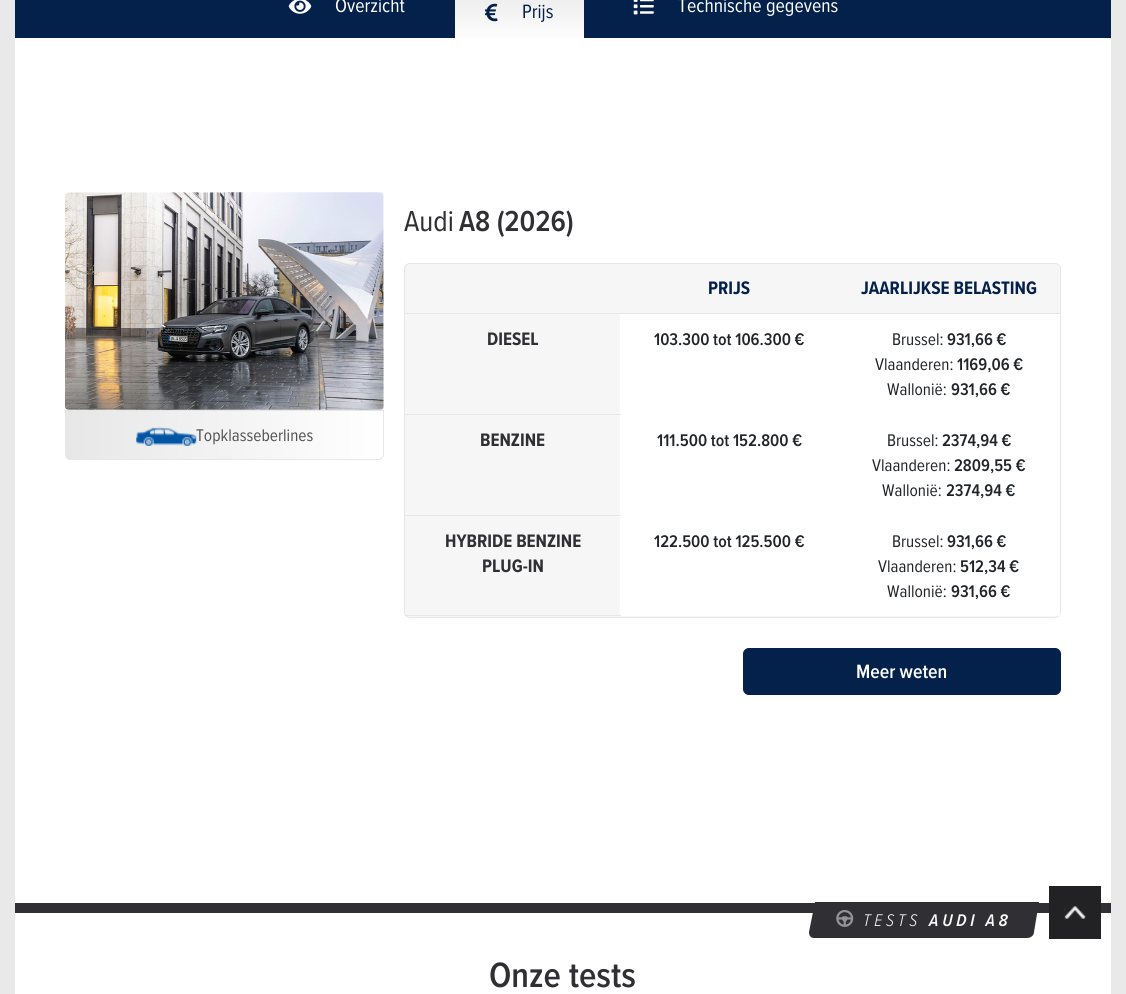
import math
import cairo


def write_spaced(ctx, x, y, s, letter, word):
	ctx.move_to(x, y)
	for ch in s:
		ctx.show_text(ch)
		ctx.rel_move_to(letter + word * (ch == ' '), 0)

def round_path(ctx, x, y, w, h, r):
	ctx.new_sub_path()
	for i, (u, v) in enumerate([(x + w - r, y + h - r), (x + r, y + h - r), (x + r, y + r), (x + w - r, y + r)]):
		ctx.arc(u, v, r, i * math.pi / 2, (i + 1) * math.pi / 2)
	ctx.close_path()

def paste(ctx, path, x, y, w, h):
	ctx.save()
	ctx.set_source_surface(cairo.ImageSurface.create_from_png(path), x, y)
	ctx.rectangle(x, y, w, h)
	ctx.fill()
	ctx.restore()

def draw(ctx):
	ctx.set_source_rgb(0.914, 0.914, 0.914)
	ctx.paint()
	ctx.set_source_rgb(0.016, 0.129, 0.298)
	ctx.rectangle(15, 0, 1096, 38)
	ctx.fill()
	paste(ctx, 'media/1.png', 288, 0, 24, 14)
	ctx.select_font_face('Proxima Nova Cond')
	ctx.set_font_size(20)
	ctx.set_source_rgb(1, 1, 1)
	ctx.move_to(335, 12)
	ctx.show_text('Overzicht')
	gradient = cairo.LinearGradient(519, -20, 519, 44)
	gradient.add_color_stop_rgba(0, 0.906, 0.906, 0.906, 1)
	gradient.add_color_stop_rgba(1, 1, 1, 1, 1)
	ctx.set_source(gradient)
	ctx.rectangle(455, 0, 129, 38)
	ctx.fill()
	paste(ctx, 'media/2.png', 485, 3, 13, 19)
	ctx.set_source_rgb(0.016, 0.129, 0.298)
	ctx.move_to(522, 18)
	ctx.show_text('Prijs')
	paste(ctx, 'media/3.png', 633, 0, 21, 15)
	ctx.set_source_rgb(1, 1, 1)
	ctx.move_to(678, 12)
	ctx.show_text('Technische gegevens')
	ctx.rectangle(15, 38, 1096, 956)
	ctx.fill()
	paste(ctx, 'media/4.png', 65, 192, 319, 218)
	ctx.save()
	ctx.new_path()
	ctx.move_to(65, 410)
	ctx.line_to(384, 410)
	ctx.line_to(384, 454)
	ctx.curve_to(384, 457.5, 381.5, 460, 378, 460)
	ctx.line_to(71, 460)
	ctx.curve_to(67.5, 460, 65, 457.5, 65, 454)
	ctx.close_path()
	ctx.clip()
	gradient = cairo.LinearGradient(66, 435, 383, 435)
	gradient.add_color_stop_rgba(0, 0.906, 0.906, 0.906, 1)
	gradient.add_color_stop_rgba(1, 1, 1, 1, 1)
	ctx.set_source(gradient)
	ctx.rectangle(66, 411, 317, 49)
	ctx.fill()
	ctx.restore()
	ctx.new_path()
	ctx.move_to(65.5, 410.5)
	ctx.line_to(383.5, 410.5)
	ctx.line_to(383.5, 454)
	ctx.curve_to(383.5, 457, 381, 459.5, 378, 459.5)
	ctx.line_to(71, 459.5)
	ctx.curve_to(68, 459.5, 65.5, 457, 65.5, 454)
	ctx.close_path()
	ctx.set_source_rgb(0.906, 0.906, 0.906)
	ctx.set_line_width(1)
	ctx.stroke()
	ctx.set_font_size(17.5)
	ctx.set_source_rgb(0.322, 0.322, 0.322)
	ctx.move_to(196, 441)
	ctx.show_text('Topklasseberlines')
	paste(ctx, 'media/5.png', 136, 427, 61, 19)
	ctx.set_font_size(30)
	ctx.set_source_rgb(0.188, 0.184, 0.2)
	ctx.move_to(404, 231)
	ctx.show_text('Audi')
	ctx.select_font_face('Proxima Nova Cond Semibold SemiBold')
	ctx.move_to(459, 231)
	ctx.show_text('A8 (2026)')
	ctx.set_source_rgb(0.961, 0.961, 0.961)
	round_path(ctx, 404.5, 263.5, 656, 354, 5.5)
	ctx.fill_preserve()
	ctx.set_source_rgb(0.906, 0.906, 0.906)
	ctx.stroke()
	ctx.select_font_face('Proxima Nova Cond', cairo.FONT_SLANT_NORMAL, cairo.FONT_WEIGHT_BOLD)
	ctx.set_font_size(18.75)
	ctx.set_source_rgb(0.016, 0.129, 0.298)
	ctx.move_to(708, 294)
	ctx.show_text('PRIJS')
	ctx.set_source_rgb(1, 1, 1)
	ctx.rectangle(620, 414, 218, 1)
	ctx.rectangle(620, 515, 218, 1)
	ctx.rectangle(620, 515, 1, 101)
	ctx.rectangle(620, 313, 1, 203)
	ctx.fill()
	ctx.set_source_rgb(0.906, 0.906, 0.906)
	ctx.rectangle(405, 313, 655, 1)
	ctx.fill()
	ctx.set_source_rgb(0.016, 0.129, 0.298)
	ctx.move_to(861, 294)
	ctx.show_text('JAARLIJKSE BELASTING')
	ctx.set_source_rgb(0.906, 0.906, 0.906)
	ctx.rectangle(405, 414, 216, 1)
	ctx.fill()
	ctx.set_source_rgb(0.188, 0.184, 0.2)
	ctx.move_to(487, 345)
	ctx.show_text('DIESEL')
	ctx.set_source_rgb(1, 1, 1)
	ctx.rectangle(621, 314, 439, 100)
	ctx.fill()
	ctx.select_font_face('Proxima Nova Cond Semibold SemiBold')
	ctx.set_font_size(17.5)
	ctx.set_source_rgb(0.129, 0.145, 0.161)
	ctx.move_to(654, 345)
	ctx.show_text('103.300 tot 106.300 €')
	ctx.select_font_face('Proxima Nova Cond')
	ctx.move_to(892, 345)
	ctx.show_text('Brussel:')
	ctx.select_font_face('Proxima Nova Cond Semibold SemiBold')
	ctx.move_to(947, 345)
	ctx.show_text('931,66 €')
	ctx.select_font_face('Proxima Nova Cond')
	ctx.move_to(875, 370)
	ctx.show_text('Vlaanderen:')
	ctx.select_font_face('Proxima Nova Cond Semibold SemiBold')
	ctx.move_to(957, 370)
	ctx.show_text('1169,06 €')
	ctx.select_font_face('Proxima Nova Cond')
	ctx.move_to(887, 395)
	ctx.show_text('Wallonië:')
	ctx.select_font_face('Proxima Nova Cond Semibold SemiBold')
	ctx.move_to(951, 395)
	ctx.show_text('931,66 €')
	ctx.set_source_rgb(0.906, 0.906, 0.906)
	ctx.rectangle(405, 515, 216, 1)
	ctx.fill()
	ctx.select_font_face('Proxima Nova Cond', cairo.FONT_SLANT_NORMAL, cairo.FONT_WEIGHT_BOLD)
	ctx.set_font_size(18.75)
	ctx.set_source_rgb(0.188, 0.184, 0.2)
	ctx.move_to(480, 446)
	ctx.show_text('BENZINE')
	ctx.set_source_rgb(1, 1, 1)
	ctx.rectangle(621, 415, 217, 100)
	ctx.fill()
	ctx.select_font_face('Proxima Nova Cond Semibold SemiBold')
	ctx.set_font_size(17.5)
	ctx.set_source_rgb(0.129, 0.145, 0.161)
	ctx.move_to(657, 446)
	ctx.show_text('111.500 tot 152.800 €')
	ctx.set_source_rgb(1, 1, 1)
	ctx.rectangle(838, 414, 222, 202)
	ctx.fill()
	ctx.select_font_face('Proxima Nova Cond')
	ctx.set_source_rgb(0.129, 0.145, 0.161)
	ctx.move_to(887, 446)
	ctx.show_text('Brussel:')
	ctx.select_font_face('Proxima Nova Cond Semibold SemiBold')
	ctx.move_to(942, 446)
	ctx.show_text('2374,94 €')
	ctx.select_font_face('Proxima Nova Cond')
	ctx.move_to(872, 471)
	ctx.show_text('Vlaanderen:')
	ctx.select_font_face('Proxima Nova Cond Semibold SemiBold')
	ctx.move_to(954, 471)
	ctx.show_text('2809,55 €')
	ctx.select_font_face('Proxima Nova Cond')
	ctx.move_to(882, 496)
	ctx.show_text('Wallonië:')
	ctx.select_font_face('Proxima Nova Cond Semibold SemiBold')
	ctx.move_to(946, 496)
	ctx.show_text('2374,94 €')
	ctx.set_source_rgb(0.906, 0.906, 0.906)
	ctx.rectangle(405, 615, 216, 1)
	ctx.fill()
	ctx.select_font_face('Proxima Nova Cond', cairo.FONT_SLANT_NORMAL, cairo.FONT_WEIGHT_BOLD)
	ctx.set_font_size(18.75)
	ctx.set_source_rgb(0.188, 0.184, 0.2)
	ctx.move_to(445, 547)
	ctx.show_text('HYBRIDE BENZINE')
	ctx.move_to(482, 572)
	ctx.show_text('PLUG-IN')
	ctx.set_source_rgb(1, 1, 1)
	ctx.rectangle(621, 516, 217, 100)
	ctx.fill()
	ctx.select_font_face('Proxima Nova Cond Semibold SemiBold')
	ctx.set_font_size(17.5)
	ctx.set_source_rgb(0.129, 0.145, 0.161)
	ctx.move_to(654, 547)
	ctx.show_text('122.500 tot 125.500 €')
	ctx.select_font_face('Proxima Nova Cond')
	ctx.move_to(892, 547)
	ctx.show_text('Brussel:')
	ctx.select_font_face('Proxima Nova Cond Semibold SemiBold')
	ctx.move_to(947, 547)
	ctx.show_text('931,66 €')
	ctx.select_font_face('Proxima Nova Cond')
	ctx.move_to(878, 572)
	ctx.show_text('Vlaanderen:')
	ctx.select_font_face('Proxima Nova Cond Semibold SemiBold')
	ctx.move_to(960, 572)
	ctx.show_text('512,34 €')
	ctx.select_font_face('Proxima Nova Cond')
	ctx.move_to(887, 597)
	ctx.show_text('Wallonië:')
	ctx.select_font_face('Proxima Nova Cond Semibold SemiBold')
	ctx.move_to(951, 597)
	ctx.show_text('931,66 €')
	ctx.set_source_rgb(0.016, 0.129, 0.298)
	round_path(ctx, 743.5, 648.5, 317, 46, 5.5)
	ctx.fill_preserve()
	ctx.stroke()
	ctx.set_font_size(20)
	ctx.set_source_rgb(1, 1, 1)
	ctx.move_to(856, 678)
	ctx.show_text('Meer weten')
	ctx.set_source_rgb(0.188, 0.184, 0.2)
	ctx.rectangle(15, 903, 1096, 10)
	ctx.fill()
	ctx.new_path()
	ctx.move_to(815, 902)
	ctx.line_to(1039, 902)
	ctx.line_to(1034, 932)
	ctx.curve_to(1034, 936, 1030, 938, 1027, 938)
	ctx.line_to(814, 938)
	ctx.curve_to(811, 938, 809, 936, 809, 932)
	ctx.close_path()
	ctx.fill()
	paste(ctx, 'media/6.png', 836, 910, 18, 17)
	ctx.select_font_face('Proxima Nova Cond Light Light', cairo.FONT_SLANT_ITALIC)
	ctx.set_font_size(17.5)
	ctx.set_source_rgb(0.973, 0.976, 0.98)
	write_spaced(ctx, 863, 926, 'TESTS', 3.75, 0)
	ctx.select_font_face('Proxima Nova Cond Semibold SemiBold', cairo.FONT_SLANT_ITALIC)
	write_spaced(ctx, 929, 926, 'AUDI A8', 3.75, 0)
	ctx.select_font_face('Proxima Nova Cond Semibold SemiBold')
	ctx.set_font_size(36.5)
	ctx.set_source_rgb(0.188, 0.184, 0.2)
	ctx.move_to(489, 987)
	ctx.show_text('Onze tests')
	ctx.set_source_rgb(0.133, 0.133, 0.141)
	ctx.rectangle(1049, 886, 52, 53)
	ctx.fill()
	paste(ctx, 'media/7.png', 1064, 906, 22, 14)


surface = cairo.ImageSurface(cairo.FORMAT_RGB24, 1126, 994)
ctx = cairo.Context(surface)
options = cairo.FontOptions()
options.set_hint_metrics(cairo.HINT_METRICS_OFF)
options.set_hint_style(cairo.HINT_STYLE_NONE)
ctx.set_font_options(options)
ctx.set_miter_limit(4)
draw(ctx)
surface.write_to_png('image.png')
